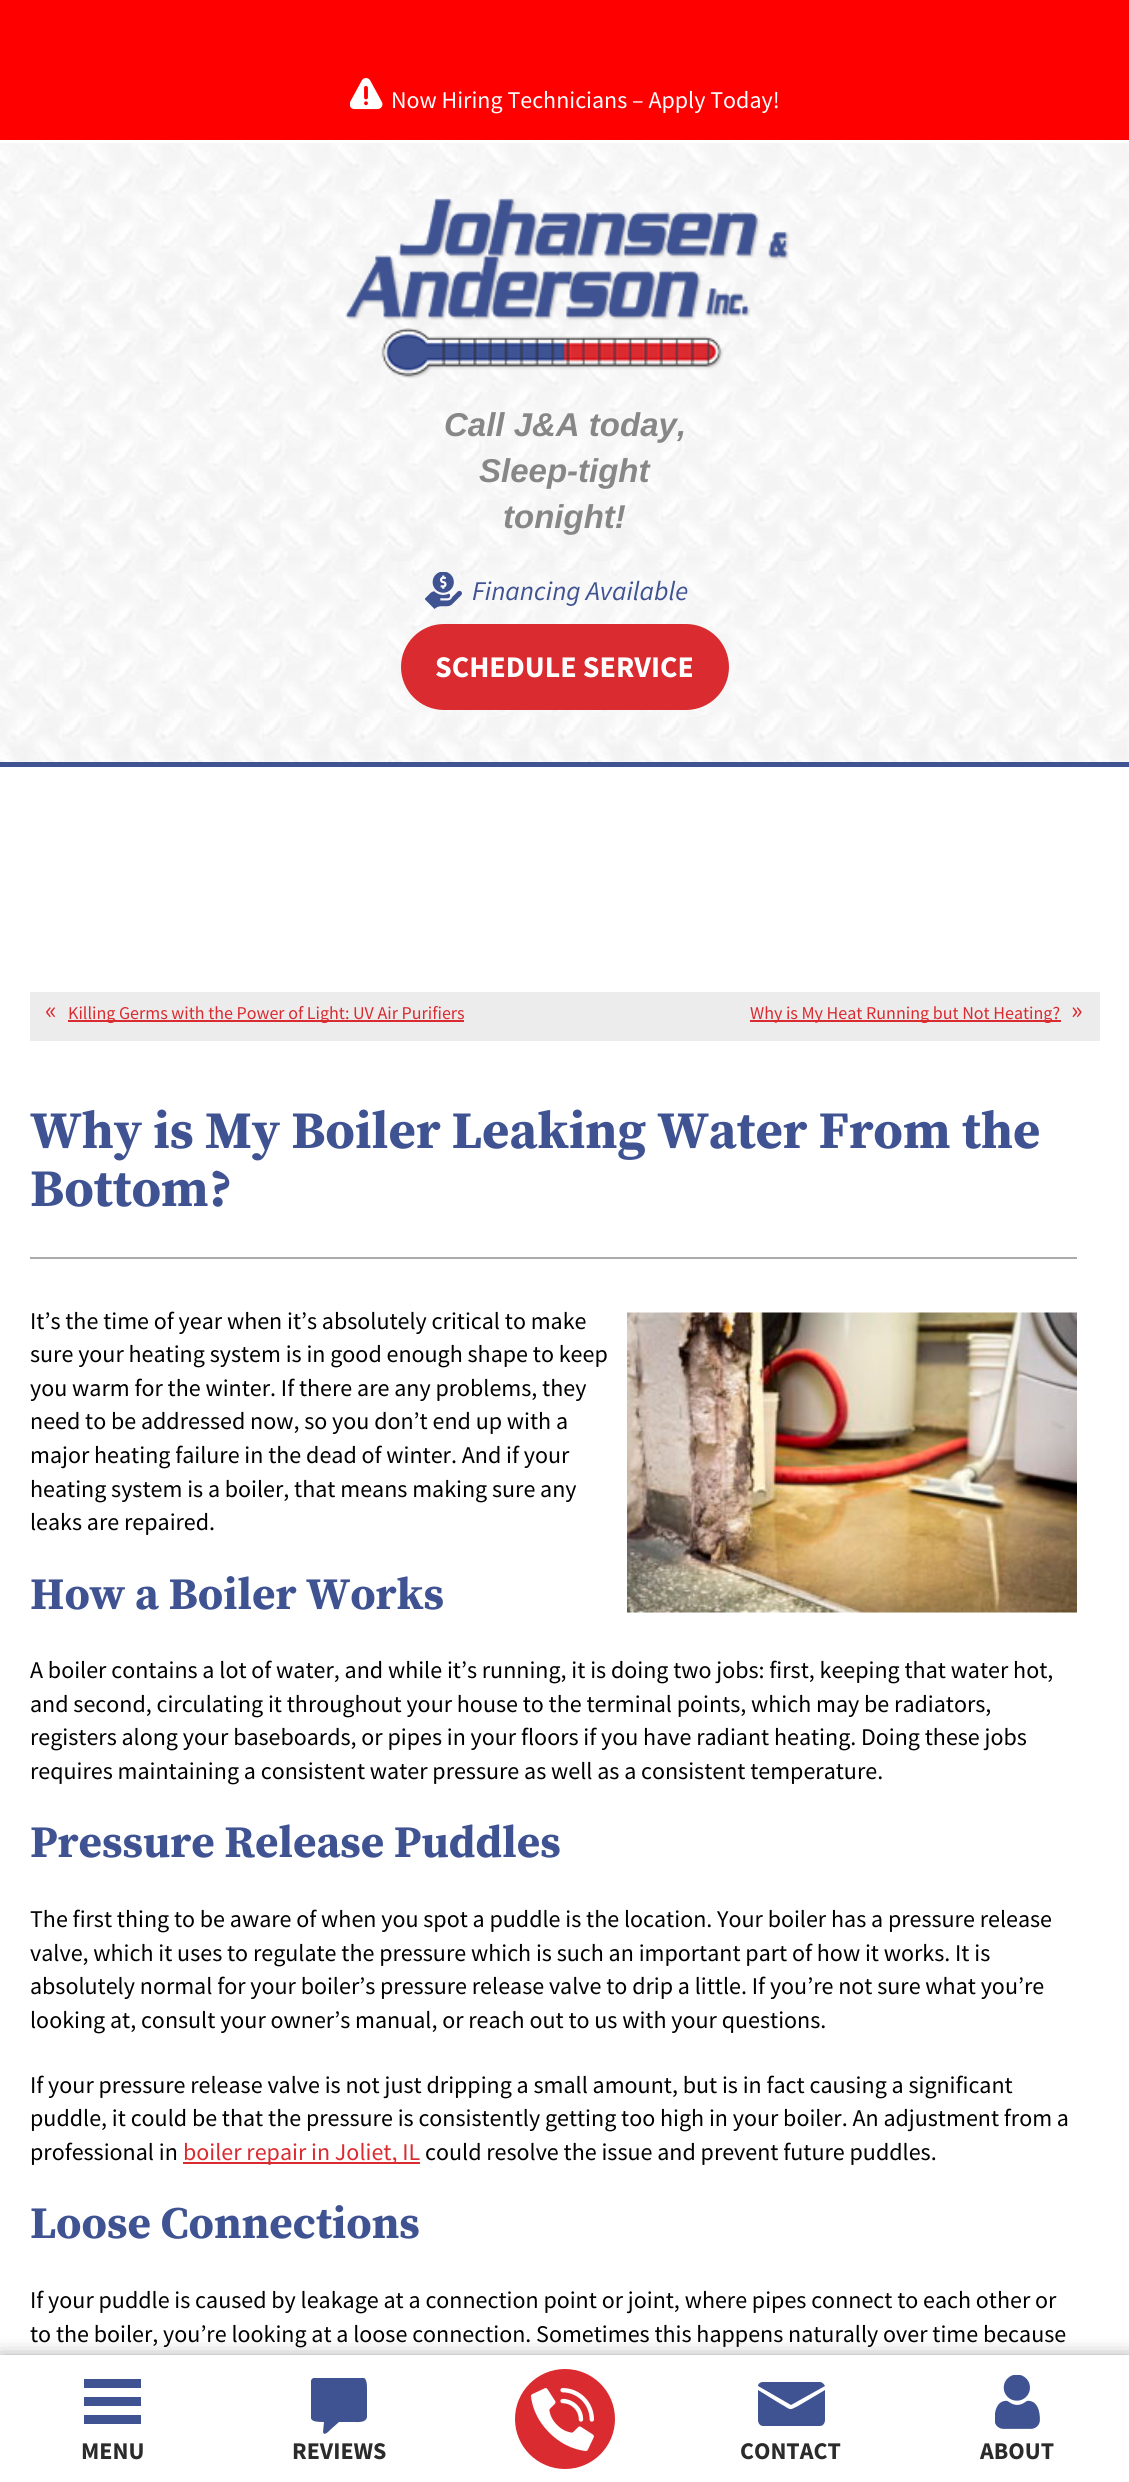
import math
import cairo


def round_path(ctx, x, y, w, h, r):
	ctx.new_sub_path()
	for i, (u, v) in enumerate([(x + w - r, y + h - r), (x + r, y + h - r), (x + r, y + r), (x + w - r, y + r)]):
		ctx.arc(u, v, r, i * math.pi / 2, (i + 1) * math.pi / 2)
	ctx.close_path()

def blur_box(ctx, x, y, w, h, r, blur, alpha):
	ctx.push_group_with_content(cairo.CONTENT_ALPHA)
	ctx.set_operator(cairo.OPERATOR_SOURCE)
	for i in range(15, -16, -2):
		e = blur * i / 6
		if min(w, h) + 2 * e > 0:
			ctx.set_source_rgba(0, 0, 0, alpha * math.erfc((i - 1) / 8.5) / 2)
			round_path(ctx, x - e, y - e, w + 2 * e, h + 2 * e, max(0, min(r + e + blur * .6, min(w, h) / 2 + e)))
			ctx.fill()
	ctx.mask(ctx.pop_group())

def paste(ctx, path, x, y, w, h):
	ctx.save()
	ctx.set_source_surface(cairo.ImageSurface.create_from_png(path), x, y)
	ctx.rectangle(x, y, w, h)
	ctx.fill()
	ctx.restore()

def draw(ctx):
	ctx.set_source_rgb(1, 1, 1)
	ctx.paint()
	ctx.set_source_rgb(1, 0, 0)
	ctx.rectangle(0, 0, 1129, 140)
	ctx.fill()
	paste(ctx, 'media/1.png', 350, 78, 33, 32)
	ctx.select_font_face('Source Sans Pro')
	ctx.set_font_size(24)
	ctx.set_source_rgb(1, 1, 1)
	ctx.move_to(391, 108)
	ctx.show_text('Now Hiring Technicians – Apply Today!')
	paste(ctx, 'media/2.png', 0, 143, 1129, 619)
	ctx.set_source_rgb(0.247, 0.325, 0.573)
	ctx.rectangle(0, 762, 1129, 5)
	ctx.fill()
	paste(ctx, 'media/3.png', 345, 198, 445, 181)
	ctx.select_font_face('Liberation Sans', cairo.FONT_SLANT_ITALIC, cairo.FONT_WEIGHT_BOLD)
	ctx.set_font_size(33)
	ctx.set_source_rgb(0.529, 0.529, 0.529)
	for x, y, s in [
		(444, 436, 'Call J&A today,'),
		(479, 482, 'Sleep-tight'),
		(503, 528, 'tonight!'),
	]:
		ctx.move_to(x, y)
		ctx.show_text(s)
	paste(ctx, 'media/4.png', 425, 572, 37, 37)
	ctx.select_font_face('Source Sans Pro', cairo.FONT_SLANT_ITALIC)
	ctx.set_font_size(27)
	ctx.set_source_rgb(0.247, 0.325, 0.573)
	ctx.move_to(472, 600)
	ctx.show_text('Financing Available')
	ctx.set_source_rgb(0.855, 0.169, 0.188)
	round_path(ctx, 403.5, 626.5, 323, 81, 40.5)
	ctx.fill_preserve()
	ctx.set_line_width(5)
	ctx.stroke()
	ctx.select_font_face('Source Sans Pro', cairo.FONT_SLANT_NORMAL, cairo.FONT_WEIGHT_BOLD)
	ctx.set_font_size(30)
	ctx.set_source_rgb(1, 1, 1)
	ctx.move_to(435, 677)
	ctx.show_text('SCHEDULE SERVICE')
	ctx.set_source_rgb(0, 0, 0)
	blur_box(ctx, 0, 2363, 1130, 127, 0, 11, 0.75)
	ctx.set_source_rgb(1, 1, 1)
	ctx.rectangle(0, 2355, 1129, 127)
	ctx.fill()
	ctx.save()
	ctx.rectangle(311, 2378, 57, 57)
	ctx.clip()
	ctx.set_source_rgb(0.247, 0.325, 0.573)
	ctx.new_path()
	ctx.move_to(361, 2377)
	ctx.line_to(324, 2377)
	ctx.curve_to(312, 2377, 310, 2377, 310, 2389)
	ctx.line_to(310, 2405)
	ctx.curve_to(310, 2420, 309, 2422, 324, 2422)
	ctx.line_to(323, 2432)
	ctx.curve_to(324, 2437, 330, 2430, 330, 2430)
	ctx.line_to(339, 2422)
	ctx.line_to(354, 2422)
	ctx.curve_to(358, 2422, 366, 2423, 367, 2417)
	ctx.line_to(367, 2389)
	ctx.curve_to(367, 2384, 367, 2377, 361, 2377)
	ctx.close_path()
	ctx.fill()
	ctx.restore()
	ctx.set_font_size(24)
	ctx.set_source_rgb(0.169, 0.169, 0.169)
	ctx.move_to(292, 2459)
	ctx.show_text('REVIEWS')
	ctx.set_source_rgb(0.855, 0.169, 0.188)
	ctx.new_path()
	ctx.arc(565, 2419, 50, 0, 2 * math.pi)
	ctx.fill()
	paste(ctx, 'media/5.png', 531, 2388, 63, 63)
	ctx.set_source_rgb(0.247, 0.325, 0.573)
	ctx.new_path()
	ctx.move_to(763, 2382)
	ctx.line_to(820, 2382)
	ctx.curve_to(822, 2382, 824, 2384, 825, 2386)
	ctx.line_to(791, 2405)
	ctx.line_to(758, 2386)
	ctx.curve_to(758, 2384, 760, 2382, 763, 2382)
	ctx.close_path()
	ctx.move_to(820, 2426)
	ctx.line_to(763, 2426)
	ctx.curve_to(760, 2426, 758, 2423, 758, 2420)
	ctx.line_to(758, 2390)
	ctx.line_to(779, 2403)
	ctx.curve_to(792, 2410, 788, 2411, 798, 2406)
	ctx.line_to(825, 2390)
	ctx.line_to(825, 2420)
	ctx.curve_to(825, 2423, 823, 2426, 820, 2426)
	ctx.close_path()
	ctx.fill()
	ctx.set_source_rgb(0.169, 0.169, 0.169)
	ctx.move_to(740, 2459)
	ctx.show_text('CONTACT')
	paste(ctx, 'media/6.png', 995, 2375, 45, 54)
	ctx.move_to(980, 2459)
	ctx.show_text('ABOUT')
	ctx.set_source_rgb(0.922, 0.922, 0.922)
	ctx.rectangle(30, 992, 1070, 49)
	ctx.fill()
	ctx.select_font_face('Source Sans Pro')
	ctx.set_font_size(27)
	ctx.set_source_rgb(0.855, 0.169, 0.188)
	ctx.move_to(45, 1019)
	ctx.show_text('«')
	ctx.rectangle(68, 1020, 396, 2)
	ctx.fill()
	ctx.set_font_size(18)
	ctx.move_to(68, 1019)
	ctx.show_text('Killing Germs with the Power of Light: UV Air Purifiers')
	ctx.rectangle(750, 1020, 311, 2)
	ctx.fill()
	ctx.move_to(750, 1019)
	ctx.show_text('Why is My Heat Running but Not Heating?')
	ctx.set_font_size(27)
	ctx.move_to(1071, 1019)
	ctx.show_text('»')
	ctx.select_font_face('Source Serif Pro', cairo.FONT_SLANT_NORMAL, cairo.FONT_WEIGHT_BOLD)
	ctx.set_font_size(52.5)
	ctx.set_source_rgb(0.247, 0.325, 0.573)
	ctx.move_to(30, 1148)
	ctx.show_text('Why is My Boiler Leaking Water From the')
	ctx.move_to(30, 1206)
	ctx.show_text('Bottom?')
	ctx.set_source_rgb(0.671, 0.671, 0.671)
	ctx.rectangle(30, 1257, 1047, 2)
	ctx.fill()
	ctx.select_font_face('Source Sans Pro')
	ctx.set_font_size(24)
	ctx.set_source_rgb(0, 0, 0)
	for x, y, s in [
		(30, 1329, 'It’s the time of year when it’s absolutely critical to make'),
		(30, 1362, 'sure your heating system is in good enough shape to keep'),
		(30, 1396, 'you warm for the winter. If there are any problems, they'),
		(30, 1429, 'need to be addressed now, so you don’t end up with a'),
		(30, 1463, 'major heating failure in the dead of winter. And if your'),
		(30, 1497, 'heating system is a boiler, that means making sure any'),
		(30, 1530, 'leaks are repaired.'),
	]:
		ctx.move_to(x, y)
		ctx.show_text(s)
	paste(ctx, 'media/7.png', 627, 1312, 450, 301)
	ctx.select_font_face('Source Serif Pro', cairo.FONT_SLANT_NORMAL, cairo.FONT_WEIGHT_BOLD)
	ctx.set_font_size(45)
	ctx.set_source_rgb(0.247, 0.325, 0.573)
	ctx.move_to(30, 1609)
	ctx.show_text('How a Boiler Works')
	ctx.select_font_face('Source Sans Pro')
	ctx.set_font_size(24)
	ctx.set_source_rgb(0, 0, 0)
	for x, y, s in [
		(30, 1678, 'A boiler contains a lot of water, and while it’s running, it is doing two jobs: first, keeping that water hot,'),
		(30, 1712, 'and second, circulating it throughout your house to the terminal points, which may be radiators,'),
		(30, 1745, 'registers along your baseboards, or pipes in your floors if you have radiant heating. Doing these jobs'),
		(30, 1779, 'requires maintaining a consistent water pressure as well as a consistent temperature.'),
	]:
		ctx.move_to(x, y)
		ctx.show_text(s)
	ctx.select_font_face('Source Serif Pro', cairo.FONT_SLANT_NORMAL, cairo.FONT_WEIGHT_BOLD)
	ctx.set_font_size(45)
	ctx.set_source_rgb(0.247, 0.325, 0.573)
	ctx.move_to(30, 1857)
	ctx.show_text('Pressure Release Puddles')
	ctx.select_font_face('Source Sans Pro')
	ctx.set_font_size(24)
	ctx.set_source_rgb(0, 0, 0)
	for x, y, s in [
		(30, 1927, 'The first thing to be aware of when you spot a puddle is the location. Your boiler has a pressure release'),
		(30, 1961, 'valve, which it uses to regulate the pressure which is such an important part of how it works. It is'),
		(30, 1994, 'absolutely normal for your boiler’s pressure release valve to drip a little. If you’re not sure what you’re'),
		(30, 2028, 'looking at, consult your owner’s manual, or reach out to us with your questions.'),
		(30, 2093, 'If your pressure release valve is not just dripping a small amount, but is in fact causing a significant'),
		(30, 2126, 'puddle, it could be that the pressure is consistently getting too high in your boiler. An adjustment from a'),
		(30, 2160, 'professional in'),
	]:
		ctx.move_to(x, y)
		ctx.show_text(s)
	ctx.set_source_rgb(0.855, 0.169, 0.188)
	ctx.rectangle(183, 2162, 237, 2)
	ctx.fill()
	ctx.move_to(183, 2160)
	ctx.show_text('boiler repair in Joliet, IL')
	ctx.set_source_rgb(0, 0, 0)
	ctx.move_to(425, 2160)
	ctx.show_text('could resolve the issue and prevent future puddles.')
	ctx.select_font_face('Source Serif Pro', cairo.FONT_SLANT_NORMAL, cairo.FONT_WEIGHT_BOLD)
	ctx.set_font_size(45)
	ctx.set_source_rgb(0.247, 0.325, 0.573)
	ctx.move_to(30, 2238)
	ctx.show_text('Loose Connections')
	ctx.select_font_face('Source Sans Pro')
	ctx.set_font_size(24)
	ctx.set_source_rgb(0, 0, 0)
	ctx.move_to(30, 2308)
	ctx.show_text('If your puddle is caused by leakage at a connection point or joint, where pipes connect to each other or')
	ctx.move_to(30, 2342)
	ctx.show_text('to the boiler, you’re looking at a loose connection. Sometimes this happens naturally over time because')
	ctx.set_source_rgb(0.247, 0.325, 0.573)
	ctx.rectangle(84, 2397, 57, 9)
	ctx.rectangle(84, 2379, 57, 9)
	ctx.rectangle(84, 2415, 57, 9)
	ctx.fill()
	ctx.select_font_face('Source Sans Pro', cairo.FONT_SLANT_NORMAL, cairo.FONT_WEIGHT_BOLD)
	ctx.set_source_rgb(0.169, 0.169, 0.169)
	ctx.move_to(81, 2459)
	ctx.show_text('MENU')


surface = cairo.ImageSurface(cairo.FORMAT_RGB24, 1129, 2482)
ctx = cairo.Context(surface)
options = cairo.FontOptions()
options.set_hint_metrics(cairo.HINT_METRICS_OFF)
options.set_hint_style(cairo.HINT_STYLE_NONE)
ctx.set_font_options(options)
ctx.set_miter_limit(4)
draw(ctx)
surface.write_to_png('image.png')
